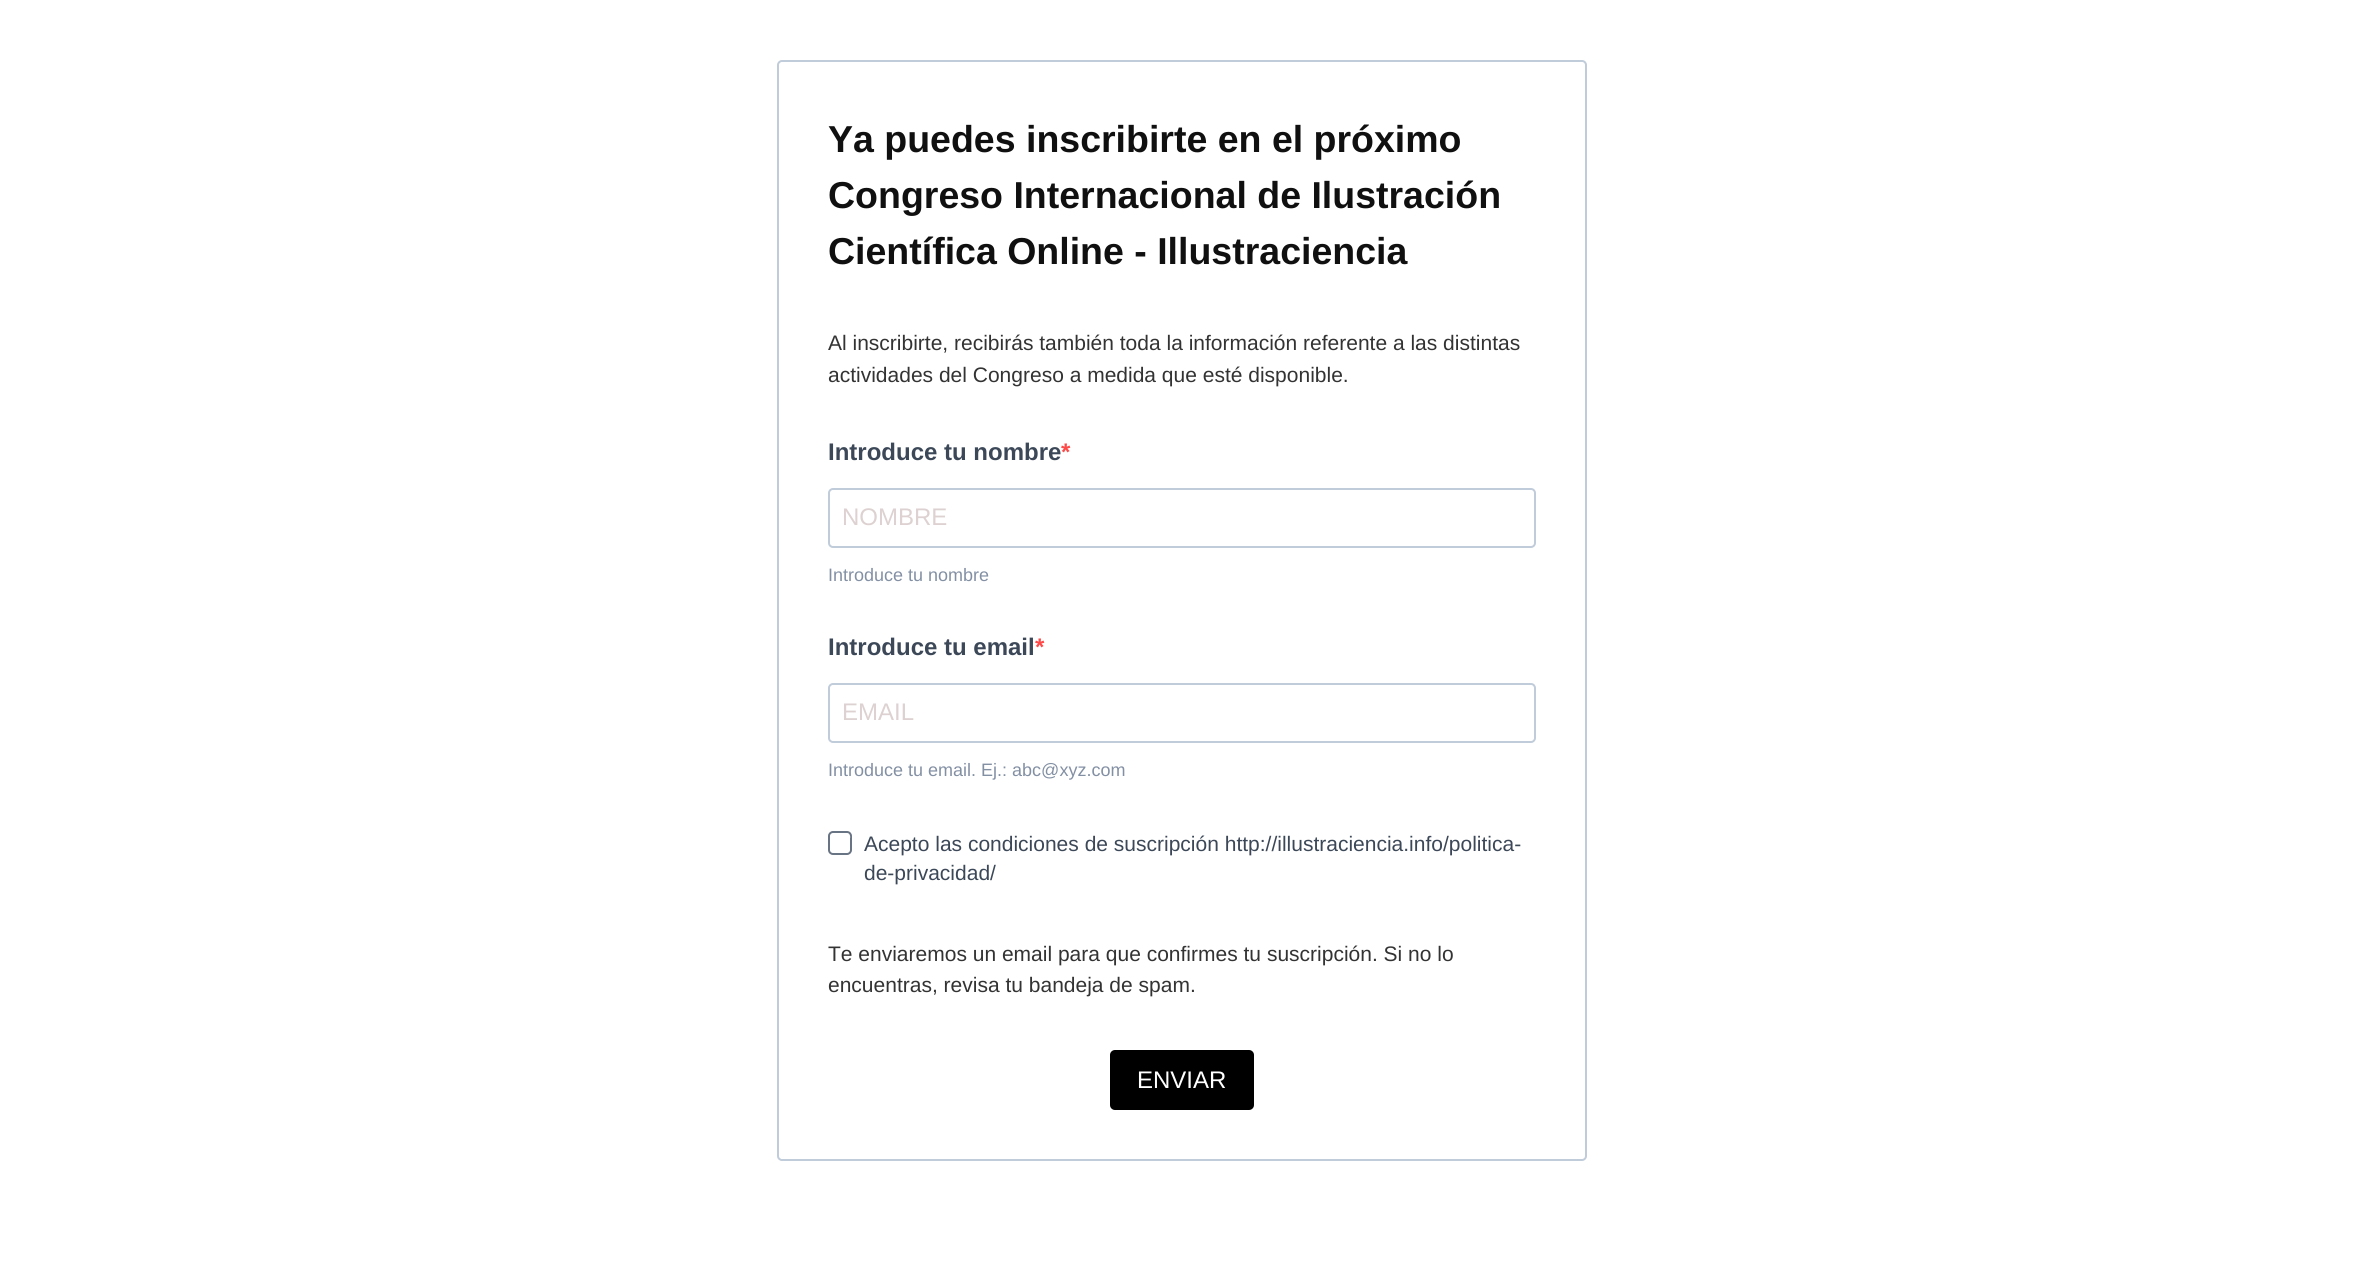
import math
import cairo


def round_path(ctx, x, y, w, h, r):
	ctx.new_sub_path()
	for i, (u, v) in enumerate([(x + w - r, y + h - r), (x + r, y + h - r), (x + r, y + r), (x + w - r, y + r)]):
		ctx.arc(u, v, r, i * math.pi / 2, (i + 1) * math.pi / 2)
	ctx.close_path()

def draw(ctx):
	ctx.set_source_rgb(1, 1, 1)
	ctx.paint()
	round_path(ctx, 778, 61, 808, 1099, 4)
	ctx.set_source_rgb(0.753, 0.8, 0.851)
	ctx.stroke()
	ctx.select_font_face('Liberation Sans', cairo.FONT_SLANT_NORMAL, cairo.FONT_WEIGHT_BOLD)
	ctx.set_font_size(37.5)
	ctx.set_source_rgb(0.063, 0.063, 0.063)
	for x, y, s in [
		(828, 152, 'Ya puedes inscribirte en el próximo'),
		(828, 208, 'Congreso Internacional de Ilustración'),
		(828, 264, 'Científica Online - Illustraciencia'),
	]:
		ctx.move_to(x, y)
		ctx.show_text(s)
	ctx.select_font_face('Liberation Sans')
	ctx.set_font_size(21)
	ctx.set_source_rgb(0.2, 0.2, 0.2)
	ctx.move_to(828, 350)
	ctx.show_text('Al inscribirte, recibirás también toda la información referente a las distintas')
	ctx.move_to(828, 382)
	ctx.show_text('actividades del Congreso a medida que esté disponible.')
	ctx.select_font_face('Liberation Sans', cairo.FONT_SLANT_NORMAL, cairo.FONT_WEIGHT_BOLD)
	ctx.set_font_size(24)
	ctx.set_source_rgb(0.235, 0.282, 0.345)
	ctx.move_to(828, 460)
	ctx.show_text('Introduce tu nombre')
	ctx.set_source_rgb(1, 0.286, 0.286)
	ctx.move_to(1061, 460)
	ctx.show_text('*')
	round_path(ctx, 829, 489, 706, 58, 4)
	ctx.set_source_rgb(0.753, 0.8, 0.855)
	ctx.stroke()
	ctx.select_font_face('Liberation Sans')
	ctx.set_source_rgb(0.867, 0.82, 0.82)
	ctx.move_to(842, 525)
	ctx.show_text('NOMBRE')
	ctx.set_font_size(18)
	ctx.set_source_rgb(0.514, 0.565, 0.643)
	ctx.move_to(828, 581)
	ctx.show_text('Introduce tu nombre')
	ctx.select_font_face('Liberation Sans', cairo.FONT_SLANT_NORMAL, cairo.FONT_WEIGHT_BOLD)
	ctx.set_font_size(24)
	ctx.set_source_rgb(0.235, 0.282, 0.345)
	ctx.move_to(828, 655)
	ctx.show_text('Introduce tu email')
	ctx.set_source_rgb(1, 0.286, 0.286)
	ctx.move_to(1035, 655)
	ctx.show_text('*')
	round_path(ctx, 829, 684, 706, 58, 4)
	ctx.set_source_rgb(0.753, 0.8, 0.855)
	ctx.stroke()
	ctx.select_font_face('Liberation Sans')
	ctx.set_source_rgb(0.867, 0.82, 0.82)
	ctx.move_to(842, 720)
	ctx.show_text('EMAIL')
	ctx.set_font_size(18)
	ctx.set_source_rgb(0.514, 0.565, 0.643)
	ctx.move_to(828, 776)
	ctx.show_text('Introduce tu email. Ej.: abc@xyz.com')
	round_path(ctx, 829, 832, 22, 22, 4)
	ctx.set_source_rgb(0.408, 0.455, 0.518)
	ctx.stroke()
	ctx.set_source_rgb(1, 1, 1)
	ctx.new_path()
	ctx.move_to(848, 835)
	ctx.line_to(850.5, 837)
	ctx.line_to(837.5, 850)
	ctx.line_to(835.5, 847.5)
	ctx.close_path()
	ctx.fill()
	ctx.set_font_size(21)
	ctx.set_source_rgb(0.235, 0.282, 0.345)
	ctx.move_to(864, 851)
	ctx.show_text('Acepto las condiciones de suscripción http://illustraciencia.info/politica-')
	ctx.move_to(864, 880)
	ctx.show_text('de-privacidad/')
	ctx.set_source_rgb(0.2, 0.2, 0.2)
	ctx.move_to(828, 961)
	ctx.show_text('Te enviaremos un email para que confirmes tu suscripción. Si no lo')
	ctx.move_to(828, 992)
	ctx.show_text('encuentras, revisa tu bandeja de spam.')
	ctx.set_source_rgb(0, 0, 0)
	round_path(ctx, 1110, 1050, 144, 60, 5)
	ctx.fill()
	ctx.set_font_size(24)
	ctx.set_source_rgb(1, 1, 1)
	ctx.move_to(1137, 1088)
	ctx.show_text('ENVIAR')


surface = cairo.ImageSurface(cairo.FORMAT_RGB24, 2363, 1271)
ctx = cairo.Context(surface)
options = cairo.FontOptions()
options.set_hint_metrics(cairo.HINT_METRICS_OFF)
options.set_hint_style(cairo.HINT_STYLE_NONE)
ctx.set_font_options(options)
ctx.set_miter_limit(4)
draw(ctx)
surface.write_to_png('image.png')
